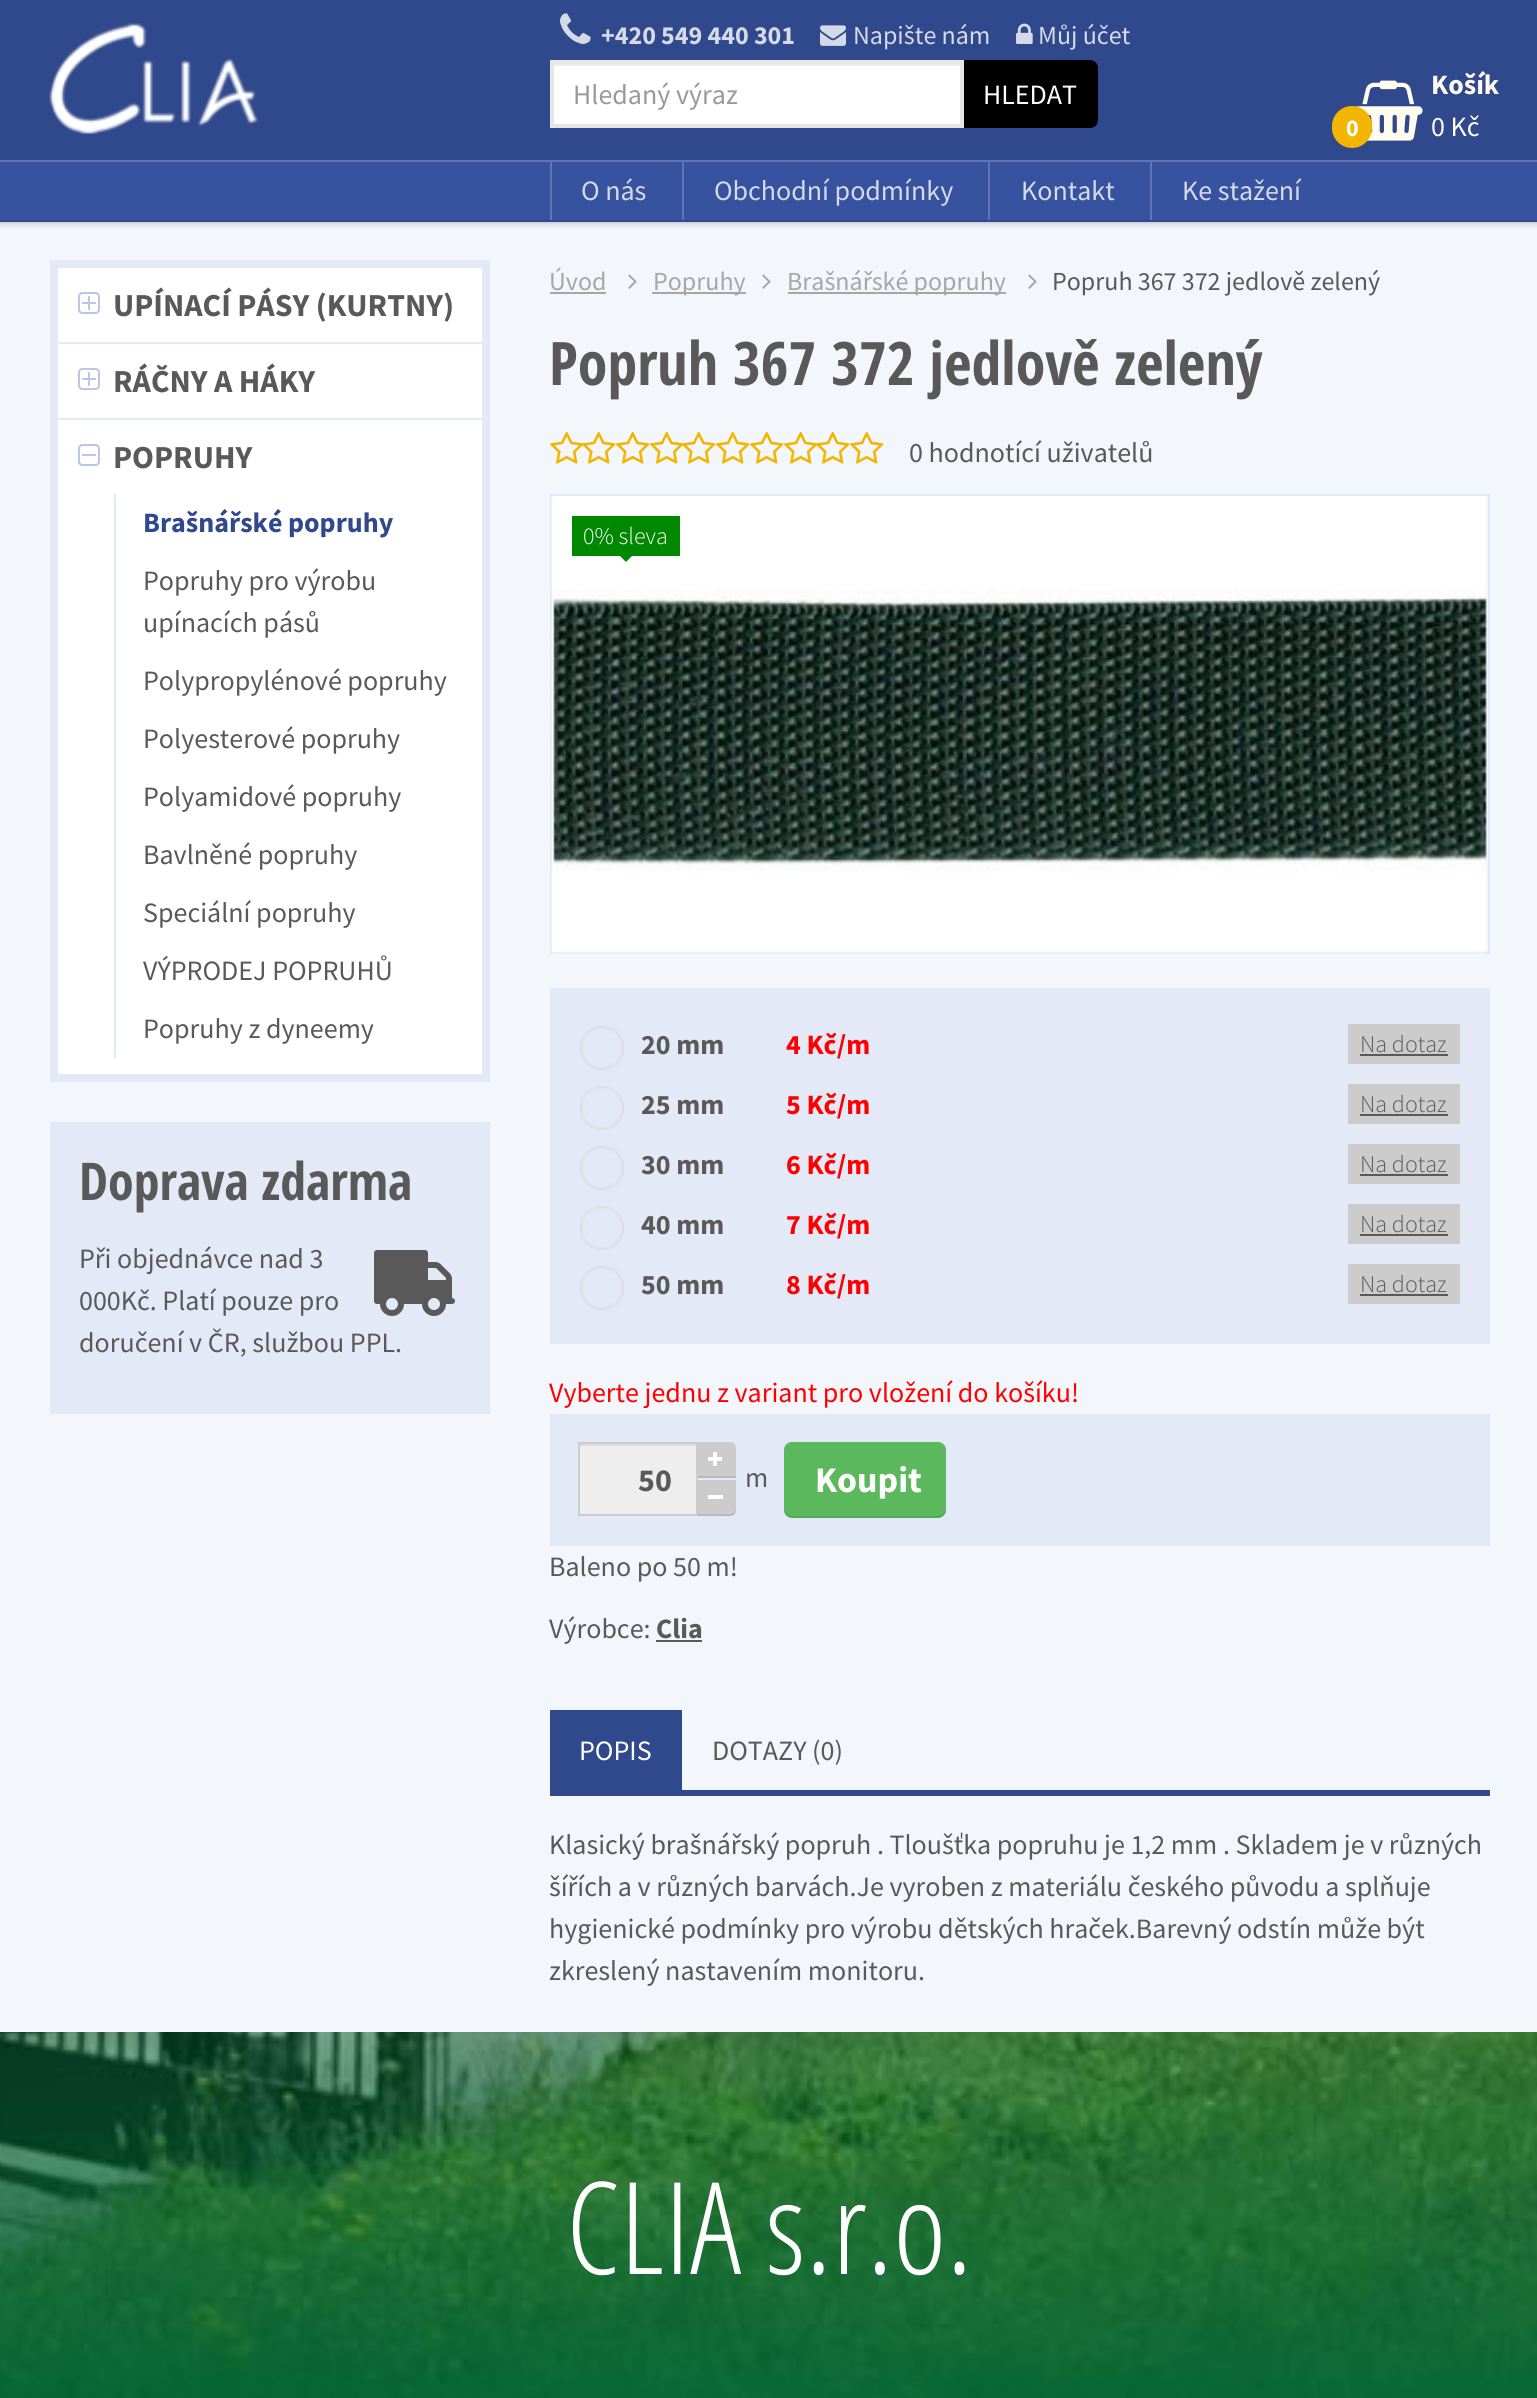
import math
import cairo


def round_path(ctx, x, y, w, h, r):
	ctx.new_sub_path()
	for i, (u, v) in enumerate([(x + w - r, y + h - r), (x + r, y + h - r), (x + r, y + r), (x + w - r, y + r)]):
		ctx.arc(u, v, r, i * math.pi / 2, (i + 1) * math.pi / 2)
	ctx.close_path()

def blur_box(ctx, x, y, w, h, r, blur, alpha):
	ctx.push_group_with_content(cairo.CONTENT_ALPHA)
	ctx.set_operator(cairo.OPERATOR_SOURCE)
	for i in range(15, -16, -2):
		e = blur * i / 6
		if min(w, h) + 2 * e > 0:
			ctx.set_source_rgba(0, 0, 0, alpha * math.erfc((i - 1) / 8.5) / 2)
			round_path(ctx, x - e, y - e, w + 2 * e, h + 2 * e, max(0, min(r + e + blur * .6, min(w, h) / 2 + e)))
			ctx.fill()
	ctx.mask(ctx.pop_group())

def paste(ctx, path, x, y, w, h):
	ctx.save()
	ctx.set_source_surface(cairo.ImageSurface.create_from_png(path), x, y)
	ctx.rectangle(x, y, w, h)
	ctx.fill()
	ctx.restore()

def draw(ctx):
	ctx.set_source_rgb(0.953, 0.961, 0.984)
	ctx.paint()
	ctx.set_source_rgb(0, 0, 0)
	blur_box(ctx, 0, 2, 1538, 222, 0, 3, 0.2)
	ctx.set_source_rgb(0.188, 0.282, 0.549)
	ctx.rectangle(0, 0, 1537, 222)
	ctx.fill()
	paste(ctx, 'media/1.png', 49, 23, 210, 111)
	paste(ctx, 'media/2.png', 560, 13, 31, 31)
	ctx.select_font_face('Source Sans Pro', cairo.FONT_SLANT_NORMAL, cairo.FONT_WEIGHT_BOLD)
	ctx.set_font_size(26)
	ctx.set_source_rgb(0.839, 0.855, 0.91)
	ctx.move_to(601, 44)
	ctx.show_text('+420 549 440 301')
	paste(ctx, 'media/3.png', 820, 25, 26, 21)
	ctx.select_font_face('Source Sans Pro')
	ctx.move_to(853, 44)
	ctx.show_text('Napište nám')
	paste(ctx, 'media/4.png', 1016, 23, 17, 21)
	ctx.move_to(1038, 44)
	ctx.show_text('Můj účet')
	ctx.set_source_rgb(1, 1, 1)
	ctx.rectangle(554, 66, 406, 58)
	ctx.fill()
	ctx.set_source_rgb(0.925, 0.925, 0.925)
	ctx.rectangle(554, 64, 406, 2)
	ctx.fill()
	ctx.rectangle(552, 62, 410, 64)
	ctx.set_source_rgb(0.902, 0.902, 0.902)
	ctx.set_line_width(4)
	ctx.stroke()
	ctx.set_font_size(28)
	ctx.set_source_rgb(0.6, 0.6, 0.6)
	ctx.move_to(573, 104)
	ctx.show_text('Hledaný výraz')
	ctx.set_source_rgb(0, 0, 0)
	ctx.new_path()
	ctx.move_to(964, 60)
	ctx.line_to(1090, 60)
	ctx.curve_to(1094.5, 60, 1098, 63.5, 1098, 68)
	ctx.line_to(1098, 120)
	ctx.curve_to(1098, 124.5, 1094.5, 128, 1090, 128)
	ctx.line_to(964, 128)
	ctx.close_path()
	ctx.fill()
	ctx.set_source_rgb(1, 1, 1)
	ctx.move_to(983, 104)
	ctx.show_text('HLEDAT')
	paste(ctx, 'media/5.png', 1356, 80, 67, 61)
	ctx.select_font_face('Source Sans Pro', cairo.FONT_SLANT_NORMAL, cairo.FONT_WEIGHT_BOLD)
	ctx.set_source_rgb(1, 0.984, 0.937)
	ctx.move_to(1431, 94)
	ctx.show_text('Košík')
	ctx.set_source_rgb(0.949, 0.714, 0)
	round_path(ctx, 1332, 106, 40, 42, 20)
	ctx.fill()
	ctx.set_font_size(24)
	ctx.set_source_rgb(1, 1, 1)
	ctx.move_to(1346, 136)
	ctx.show_text('0')
	ctx.select_font_face('Source Sans Pro')
	ctx.set_font_size(28)
	ctx.set_source_rgb(1, 0.984, 0.937)
	ctx.move_to(1431, 136)
	ctx.show_text('0 Kč')
	ctx.set_source_rgb(0.216, 0.322, 0.624)
	ctx.rectangle(0, 162, 1537, 58)
	ctx.fill()
	ctx.set_source_rgb(0.373, 0.459, 0.698)
	ctx.rectangle(0, 160, 1537, 2)
	ctx.rectangle(550, 162, 2, 58)
	ctx.fill()
	ctx.set_source_rgb(0.839, 0.855, 0.91)
	ctx.move_to(581, 200)
	ctx.show_text('O nás')
	ctx.set_source_rgb(0.373, 0.459, 0.698)
	ctx.rectangle(682, 162, 2, 58)
	ctx.fill()
	ctx.set_source_rgb(0.839, 0.855, 0.91)
	ctx.move_to(714, 200)
	ctx.show_text('Obchodní podmínky')
	ctx.set_source_rgb(0.373, 0.459, 0.698)
	ctx.rectangle(988, 162, 2, 58)
	ctx.fill()
	ctx.set_source_rgb(0.839, 0.855, 0.91)
	ctx.move_to(1021, 200)
	ctx.show_text('Kontakt')
	ctx.set_source_rgb(0.373, 0.459, 0.698)
	ctx.rectangle(1150, 162, 2, 58)
	ctx.fill()
	ctx.set_source_rgb(0.839, 0.855, 0.91)
	ctx.move_to(1182, 200)
	ctx.show_text('Ke stažení')
	ctx.set_source_rgb(1, 1, 1)
	ctx.rectangle(54, 264, 432, 814)
	ctx.fill_preserve()
	ctx.set_source_rgb(0.894, 0.914, 0.965)
	ctx.set_line_width(8)
	ctx.stroke()
	ctx.rectangle(58, 342, 424, 2)
	ctx.fill()
	paste(ctx, 'media/6.png', 78, 292, 22, 22)
	ctx.select_font_face('Source Sans Pro', cairo.FONT_SLANT_NORMAL, cairo.FONT_WEIGHT_BOLD)
	ctx.set_font_size(32)
	ctx.set_source_rgb(0.349, 0.349, 0.349)
	ctx.move_to(113, 316)
	ctx.show_text('UPÍNACÍ PÁSY (KURTNY)')
	ctx.set_source_rgb(0.894, 0.914, 0.965)
	ctx.rectangle(58, 418, 424, 2)
	ctx.fill()
	paste(ctx, 'media/6.png', 78, 368, 22, 22)
	ctx.set_source_rgb(0.349, 0.349, 0.349)
	ctx.move_to(113, 392)
	ctx.show_text('RÁČNY A HÁKY')
	paste(ctx, 'media/7.png', 78, 444, 22, 22)
	ctx.move_to(113, 468)
	ctx.show_text('POPRUHY')
	ctx.set_source_rgb(0.894, 0.914, 0.965)
	ctx.rectangle(114, 494, 2, 564)
	ctx.fill()
	ctx.set_font_size(28)
	ctx.set_source_rgb(0.188, 0.282, 0.549)
	ctx.move_to(143, 532)
	ctx.show_text('Brašnářské popruhy')
	ctx.select_font_face('Source Sans Pro')
	ctx.set_source_rgb(0.349, 0.349, 0.349)
	for x, y, s in [
		(143, 590, 'Popruhy pro výrobu'),
		(143, 632, 'upínacích pásů'),
		(143, 690, 'Polypropylénové popruhy'),
		(143, 748, 'Polyesterové popruhy'),
		(143, 806, 'Polyamidové popruhy'),
		(143, 864, 'Bavlněné popruhy'),
		(143, 922, 'Speciální popruhy'),
		(143, 980, 'VÝPRODEJ POPRUHŮ'),
		(143, 1038, 'Popruhy z dyneemy'),
	]:
		ctx.move_to(x, y)
		ctx.show_text(s)
	ctx.set_source_rgb(0.894, 0.914, 0.965)
	ctx.rectangle(50, 1122, 440, 292)
	ctx.fill()
	ctx.select_font_face('Open Sans Condensed', cairo.FONT_SLANT_NORMAL, cairo.FONT_WEIGHT_BOLD)
	ctx.set_font_size(52)
	ctx.set_source_rgb(0.349, 0.349, 0.349)
	ctx.move_to(79, 1200)
	ctx.show_text('Doprava zdarma')
	ctx.select_font_face('Source Sans Pro')
	ctx.set_font_size(28)
	ctx.move_to(79, 1268)
	ctx.show_text('Při objednávce nad 3')
	paste(ctx, 'media/8.png', 374, 1250, 81, 66)
	ctx.move_to(79, 1310)
	ctx.show_text('000Kč. Platí pouze pro')
	ctx.move_to(79, 1352)
	ctx.show_text('doručení v ČR, službou PPL.')
	ctx.set_font_size(26)
	ctx.set_source_rgb(0.651, 0.651, 0.651)
	ctx.move_to(549, 290)
	ctx.show_text('Úvod')
	ctx.rectangle(550, 292, 56, 2)
	ctx.fill()
	paste(ctx, 'media/9.png', 628, 274, 9, 15)
	ctx.rectangle(652, 292, 94, 2)
	ctx.fill()
	ctx.move_to(653, 290)
	ctx.show_text('Popruhy')
	paste(ctx, 'media/9.png', 762, 274, 9, 15)
	ctx.rectangle(788, 292, 218, 2)
	ctx.fill()
	ctx.move_to(787, 290)
	ctx.show_text('Brašnářské popruhy')
	paste(ctx, 'media/9.png', 1028, 274, 9, 15)
	ctx.set_source_rgb(0.349, 0.349, 0.349)
	ctx.move_to(1052, 290)
	ctx.show_text('Popruh 367 372 jedlově zelený')
	ctx.select_font_face('Open Sans Condensed', cairo.FONT_SLANT_NORMAL, cairo.FONT_WEIGHT_BOLD)
	ctx.set_font_size(60)
	ctx.move_to(549, 385)
	ctx.show_text('Popruh 367 372 jedlově zelený')
	paste(ctx, 'media/10.png', 550, 431, 34, 33)
	paste(ctx, 'media/11.png', 582, 431, 34, 33)
	paste(ctx, 'media/10.png', 616, 431, 34, 33)
	paste(ctx, 'media/10.png', 650, 431, 34, 33)
	paste(ctx, 'media/11.png', 682, 431, 34, 33)
	paste(ctx, 'media/10.png', 716, 431, 34, 33)
	paste(ctx, 'media/10.png', 750, 431, 34, 33)
	paste(ctx, 'media/10.png', 784, 431, 34, 33)
	paste(ctx, 'media/11.png', 816, 431, 34, 33)
	paste(ctx, 'media/10.png', 850, 431, 34, 33)
	ctx.select_font_face('Source Sans Pro')
	ctx.set_font_size(28)
	ctx.move_to(909, 462)
	ctx.show_text('0 hodnotící uživatelů')
	ctx.rectangle(551, 495, 938, 458)
	ctx.set_source_rgb(0.894, 0.914, 0.965)
	ctx.set_line_width(2)
	ctx.stroke()
	paste(ctx, 'media/12.png', 551, 496, 936, 458)
	ctx.set_source_rgb(0, 0.533, 0)
	ctx.rectangle(572, 516, 108, 40)
	ctx.fill()
	ctx.select_font_face('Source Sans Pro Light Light')
	ctx.set_font_size(24)
	ctx.set_source_rgb(1, 1, 1)
	ctx.move_to(583, 544)
	ctx.show_text('0% sleva')
	ctx.set_source_rgb(0, 0.533, 0)
	ctx.new_path()
	ctx.move_to(620, 556)
	ctx.line_to(632, 556)
	ctx.line_to(626, 562)
	ctx.close_path()
	ctx.fill()
	ctx.set_source_rgb(0.894, 0.914, 0.965)
	ctx.rectangle(550, 988, 940, 356)
	ctx.fill()
	paste(ctx, 'media/13.png', 580, 1026, 44, 44)
	ctx.select_font_face('Source Sans Pro', cairo.FONT_SLANT_NORMAL, cairo.FONT_WEIGHT_BOLD)
	ctx.set_font_size(28)
	ctx.set_source_rgb(0.349, 0.349, 0.349)
	ctx.move_to(641, 1054)
	ctx.show_text('20 mm')
	ctx.set_source_rgb(1, 0, 0)
	ctx.move_to(786, 1054)
	ctx.show_text('4 Kč/m')
	ctx.set_source_rgb(0.8, 0.8, 0.8)
	ctx.rectangle(1348, 1024, 112, 40)
	ctx.fill()
	ctx.select_font_face('Source Sans Pro Light Light')
	ctx.set_font_size(24)
	ctx.set_source_rgb(0.349, 0.349, 0.349)
	ctx.move_to(1360, 1052)
	ctx.show_text('Na dotaz')
	ctx.rectangle(1360, 1054, 88, 2)
	ctx.fill()
	paste(ctx, 'media/13.png', 580, 1086, 44, 44)
	ctx.select_font_face('Source Sans Pro', cairo.FONT_SLANT_NORMAL, cairo.FONT_WEIGHT_BOLD)
	ctx.set_font_size(28)
	ctx.move_to(641, 1114)
	ctx.show_text('25 mm')
	ctx.set_source_rgb(1, 0, 0)
	ctx.move_to(786, 1114)
	ctx.show_text('5 Kč/m')
	ctx.set_source_rgb(0.8, 0.8, 0.8)
	ctx.rectangle(1348, 1084, 112, 40)
	ctx.fill()
	ctx.select_font_face('Source Sans Pro Light Light')
	ctx.set_font_size(24)
	ctx.set_source_rgb(0.349, 0.349, 0.349)
	ctx.move_to(1360, 1112)
	ctx.show_text('Na dotaz')
	ctx.rectangle(1360, 1114, 88, 2)
	ctx.fill()
	paste(ctx, 'media/13.png', 580, 1146, 44, 44)
	ctx.select_font_face('Source Sans Pro', cairo.FONT_SLANT_NORMAL, cairo.FONT_WEIGHT_BOLD)
	ctx.set_font_size(28)
	ctx.move_to(641, 1174)
	ctx.show_text('30 mm')
	ctx.set_source_rgb(1, 0, 0)
	ctx.move_to(786, 1174)
	ctx.show_text('6 Kč/m')
	ctx.set_source_rgb(0.8, 0.8, 0.8)
	ctx.rectangle(1348, 1144, 112, 40)
	ctx.fill()
	ctx.select_font_face('Source Sans Pro Light Light')
	ctx.set_font_size(24)
	ctx.set_source_rgb(0.349, 0.349, 0.349)
	ctx.move_to(1360, 1172)
	ctx.show_text('Na dotaz')
	ctx.rectangle(1360, 1174, 88, 2)
	ctx.fill()
	paste(ctx, 'media/13.png', 580, 1206, 44, 44)
	ctx.select_font_face('Source Sans Pro', cairo.FONT_SLANT_NORMAL, cairo.FONT_WEIGHT_BOLD)
	ctx.set_font_size(28)
	ctx.move_to(641, 1234)
	ctx.show_text('40 mm')
	ctx.set_source_rgb(1, 0, 0)
	ctx.move_to(786, 1234)
	ctx.show_text('7 Kč/m')
	ctx.set_source_rgb(0.8, 0.8, 0.8)
	ctx.rectangle(1348, 1204, 112, 40)
	ctx.fill()
	ctx.select_font_face('Source Sans Pro Light Light')
	ctx.set_font_size(24)
	ctx.set_source_rgb(0.349, 0.349, 0.349)
	ctx.move_to(1360, 1232)
	ctx.show_text('Na dotaz')
	ctx.rectangle(1360, 1234, 88, 2)
	ctx.fill()
	paste(ctx, 'media/13.png', 580, 1266, 44, 44)
	ctx.select_font_face('Source Sans Pro', cairo.FONT_SLANT_NORMAL, cairo.FONT_WEIGHT_BOLD)
	ctx.set_font_size(28)
	ctx.move_to(641, 1294)
	ctx.show_text('50 mm')
	ctx.set_source_rgb(1, 0, 0)
	ctx.move_to(786, 1294)
	ctx.show_text('8 Kč/m')
	ctx.set_source_rgb(0.8, 0.8, 0.8)
	ctx.rectangle(1348, 1264, 112, 40)
	ctx.fill()
	ctx.select_font_face('Source Sans Pro Light Light')
	ctx.set_font_size(24)
	ctx.set_source_rgb(0.349, 0.349, 0.349)
	ctx.move_to(1360, 1292)
	ctx.show_text('Na dotaz')
	ctx.rectangle(1360, 1294, 88, 2)
	ctx.fill()
	ctx.select_font_face('Source Sans Pro')
	ctx.set_font_size(28)
	ctx.set_source_rgb(1, 0, 0)
	ctx.move_to(549, 1402)
	ctx.show_text('Vyberte jednu z variant pro vložení do košíku!')
	ctx.set_source_rgb(0.894, 0.914, 0.965)
	ctx.rectangle(550, 1414, 940, 132)
	ctx.fill()
	ctx.set_source_rgb(0.933, 0.933, 0.933)
	ctx.rectangle(580, 1446, 116, 68)
	ctx.fill()
	ctx.set_source_rgb(0.863, 0.863, 0.863)
	ctx.rectangle(580, 1444, 116, 2)
	ctx.fill()
	ctx.set_source_rgb(0.8, 0.8, 0.8)
	ctx.new_path()
	ctx.move_to(696, 1442)
	ctx.line_to(730, 1442)
	ctx.curve_to(733.5, 1442, 736, 1444.5, 736, 1448)
	ctx.line_to(736, 1478)
	ctx.line_to(696, 1478)
	ctx.close_path()
	ctx.fill()
	ctx.set_source_rgb(0.722, 0.722, 0.722)
	ctx.rectangle(696, 1476, 40, 2)
	ctx.fill()
	ctx.set_source_rgb(0.8, 0.8, 0.8)
	ctx.new_path()
	ctx.move_to(696, 1480)
	ctx.line_to(736, 1480)
	ctx.line_to(736, 1510)
	ctx.curve_to(736, 1513.5, 733.5, 1516, 730, 1516)
	ctx.line_to(696, 1516)
	ctx.close_path()
	ctx.fill()
	ctx.set_source_rgba(0, 0, 0, 0.1)
	ctx.new_path()
	ctx.move_to(696, 1514)
	ctx.line_to(696, 1516)
	ctx.line_to(719, 1516)
	ctx.curve_to(727, 1516, 736, 1519, 736, 1508)
	ctx.curve_to(736, 1511, 733, 1514, 730, 1514)
	ctx.close_path()
	ctx.fill()
	ctx.rectangle(579, 1443, 118, 72)
	ctx.set_source_rgb(0.8, 0.8, 0.8)
	ctx.stroke()
	ctx.select_font_face('Source Sans Pro', cairo.FONT_SLANT_NORMAL, cairo.FONT_WEIGHT_BOLD)
	ctx.set_font_size(32)
	ctx.set_source_rgb(0.349, 0.349, 0.349)
	ctx.move_to(638, 1491)
	ctx.show_text('50')
	paste(ctx, 'media/14.png', 708, 1451, 15, 15)
	ctx.set_source_rgb(1, 1, 1)
	ctx.rectangle(708, 1495, 15, 4)
	ctx.fill()
	ctx.select_font_face('Source Sans Pro')
	ctx.set_font_size(28)
	ctx.set_source_rgb(0.349, 0.349, 0.349)
	ctx.move_to(745, 1487)
	ctx.show_text('m')
	ctx.set_source_rgb(0.361, 0.722, 0.361)
	round_path(ctx, 784, 1442, 162, 76, 8)
	ctx.fill()
	ctx.set_source_rgba(0, 0, 0, 0.1)
	ctx.new_path()
	ctx.move_to(784, 1508)
	ctx.line_to(784, 1510)
	ctx.curve_to(784, 1514, 788, 1518, 792, 1518)
	ctx.line_to(938, 1518)
	ctx.curve_to(942, 1518, 946, 1514, 946, 1510)
	ctx.line_to(946, 1508)
	ctx.curve_to(946, 1512, 942, 1516, 938, 1516)
	ctx.line_to(792, 1516)
	ctx.curve_to(788, 1516, 784, 1512, 784, 1508)
	ctx.close_path()
	ctx.fill()
	ctx.select_font_face('Source Sans Pro', cairo.FONT_SLANT_NORMAL, cairo.FONT_WEIGHT_BOLD)
	ctx.set_font_size(36)
	ctx.set_source_rgb(1, 1, 1)
	ctx.move_to(815, 1492)
	ctx.show_text('Koupit')
	ctx.select_font_face('Source Sans Pro')
	ctx.set_font_size(28)
	ctx.set_source_rgb(0.349, 0.349, 0.349)
	ctx.move_to(549, 1576)
	ctx.show_text('Baleno po 50 m!')
	ctx.move_to(549, 1638)
	ctx.show_text('Výrobce:')
	ctx.select_font_face('Source Sans Pro', cairo.FONT_SLANT_NORMAL, cairo.FONT_WEIGHT_BOLD)
	ctx.move_to(656, 1638)
	ctx.show_text('Clia')
	ctx.rectangle(656, 1640, 46, 2)
	ctx.fill()
	ctx.set_source_rgb(0.188, 0.282, 0.549)
	ctx.rectangle(550, 1790, 940, 6)
	ctx.rectangle(550, 1710, 132, 80)
	ctx.fill()
	ctx.select_font_face('Source Sans Pro')
	ctx.set_source_rgb(1, 1, 1)
	ctx.move_to(579, 1760)
	ctx.show_text('POPIS')
	ctx.set_source_rgb(0.349, 0.349, 0.349)
	for x, y, s in [
		(712, 1760, 'DOTAZY (0)'),
		(549, 1854, 'Klasický brašnářský popruh . Tloušťka popruhu je 1,2 mm . Skladem je v různých'),
		(549, 1896, 'šířích a v různých barvách.Je vyroben z materiálu českého původu a splňuje'),
		(549, 1938, 'hygienické podmínky pro výrobu dětských hraček.Barevný odstín může být'),
		(549, 1980, 'zkreslený nastavením monitoru.'),
	]:
		ctx.move_to(x, y)
		ctx.show_text(s)
	paste(ctx, 'media/15.png', 0, 2032, 1537, 366)
	ctx.select_font_face('Open Sans Condensed Light')
	ctx.set_font_size(128)
	ctx.set_source_rgb(1, 1, 1)
	ctx.move_to(566, 2274)
	ctx.show_text('CLIA s.r.o.')


surface = cairo.ImageSurface(cairo.FORMAT_RGB24, 1537, 2398)
ctx = cairo.Context(surface)
options = cairo.FontOptions()
options.set_hint_metrics(cairo.HINT_METRICS_OFF)
options.set_hint_style(cairo.HINT_STYLE_NONE)
ctx.set_font_options(options)
ctx.set_miter_limit(4)
draw(ctx)
surface.write_to_png('image.png')
